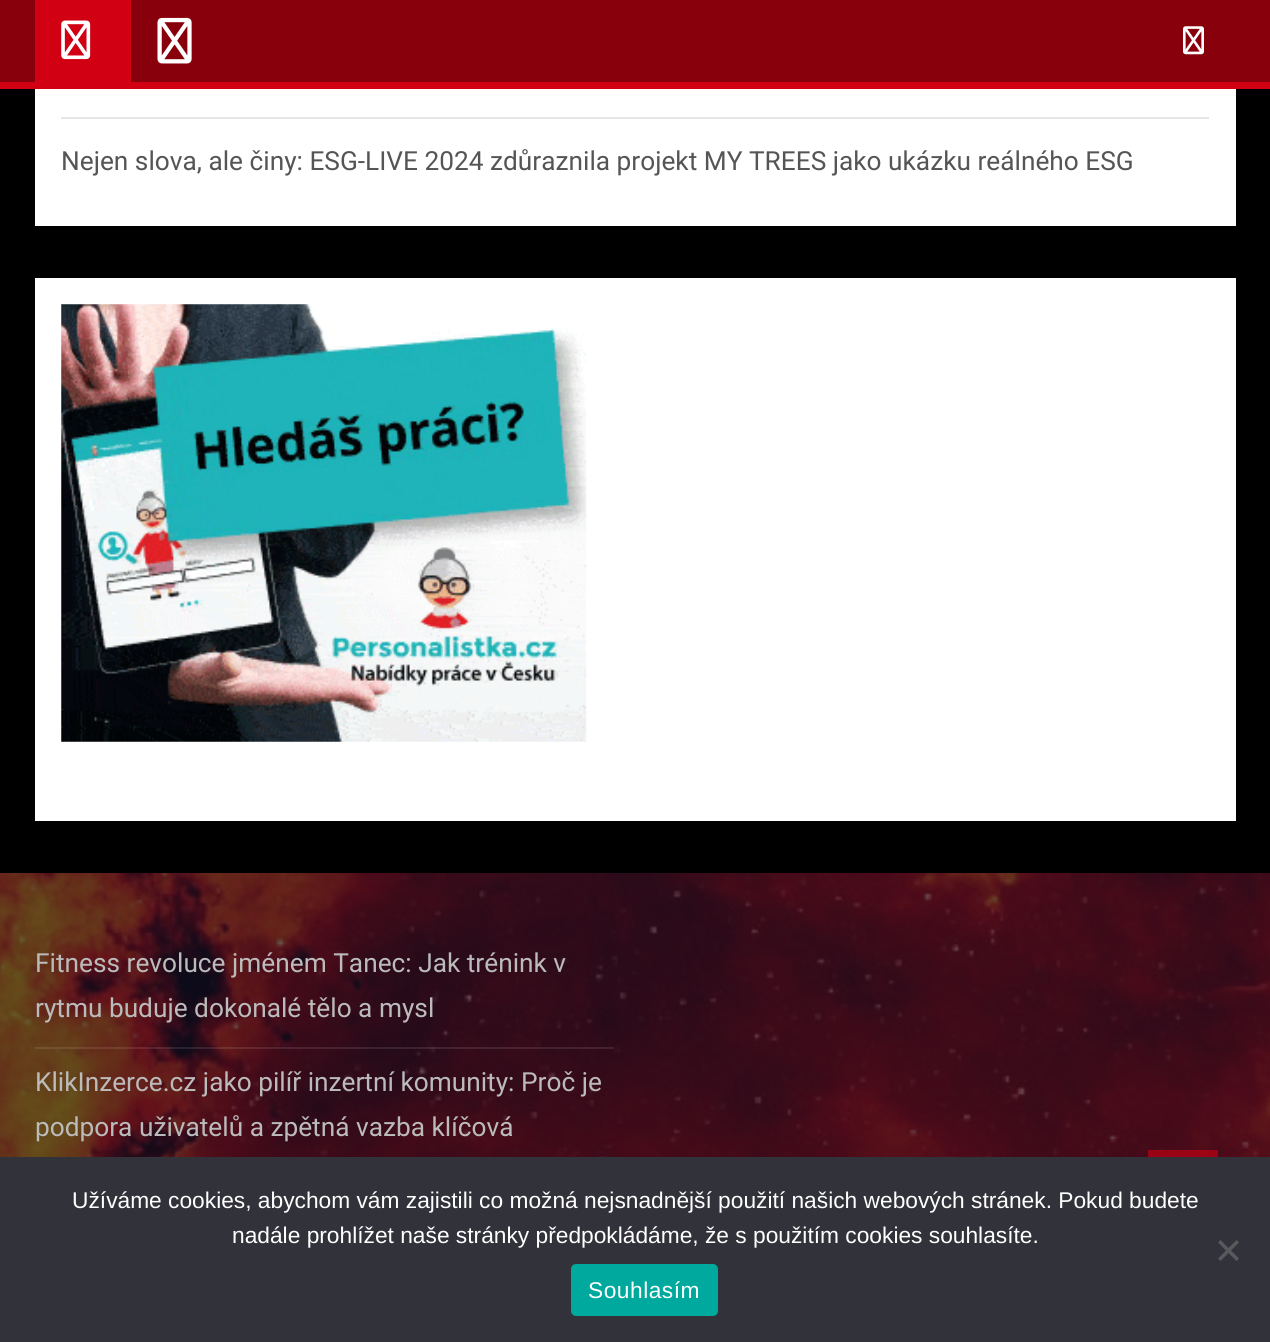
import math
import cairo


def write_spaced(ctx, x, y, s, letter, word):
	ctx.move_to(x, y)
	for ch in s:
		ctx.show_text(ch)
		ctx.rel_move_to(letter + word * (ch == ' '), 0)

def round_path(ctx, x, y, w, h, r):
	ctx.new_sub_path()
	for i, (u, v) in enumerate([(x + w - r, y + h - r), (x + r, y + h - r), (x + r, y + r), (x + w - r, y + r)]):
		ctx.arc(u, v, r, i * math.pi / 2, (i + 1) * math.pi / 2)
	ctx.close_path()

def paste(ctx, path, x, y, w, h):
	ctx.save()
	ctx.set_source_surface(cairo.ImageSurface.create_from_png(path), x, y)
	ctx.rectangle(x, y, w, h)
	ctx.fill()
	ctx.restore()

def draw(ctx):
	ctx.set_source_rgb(0, 0, 0)
	ctx.paint()
	ctx.set_source_rgb(0.537, 0, 0.051)
	ctx.rectangle(0, 0, 1270, 82)
	ctx.fill()
	ctx.set_source_rgb(0.82, 0, 0.078)
	ctx.rectangle(35, 0, 96, 82)
	ctx.fill()
	paste(ctx, 'media/1.png', 61, 20, 30, 40)
	paste(ctx, 'media/2.png', 157, 17, 35, 47)
	paste(ctx, 'media/3.png', 1183, 26, 21, 29)
	ctx.rectangle(0, 82, 1270, 7)
	ctx.fill()
	ctx.set_source_rgb(1, 1, 1)
	ctx.rectangle(35, 89, 1201, 137)
	ctx.fill()
	ctx.set_source_rgb(0.902, 0.902, 0.902)
	ctx.rectangle(61, 117, 1148, 2)
	ctx.fill()
	ctx.select_font_face('Roboto')
	ctx.set_font_size(26.25)
	ctx.set_source_rgb(0.333, 0.333, 0.333)
	ctx.move_to(61, 170)
	ctx.show_text('Nejen slova, ale činy: ESG-LIVE 2024 zdůraznila projekt MY TREES jako ukázku reálného ESG')
	ctx.set_source_rgb(1, 1, 1)
	ctx.rectangle(35, 278, 1201, 543)
	ctx.fill()
	paste(ctx, 'media/4.png', 61, 304, 526, 438)
	paste(ctx, 'media/5.png', 0, 873, 1270, 284)
	ctx.set_source_rgba(1, 1, 1, 0.1)
	ctx.rectangle(35, 1047, 579, 2)
	ctx.fill()
	ctx.set_source_rgb(0.733, 0.733, 0.733)
	for x, y, s in [
		(35, 972, 'Fitness revoluce jménem Tanec: Jak trénink v'),
		(35, 1017, 'rytmu buduje dokonalé tělo a mysl'),
		(35, 1091, 'KlikInzerce.cz jako pilíř inzertní komunity: Proč je'),
		(35, 1136, 'podpora uživatelů a zpětná vazba klíčová'),
	]:
		ctx.move_to(x, y)
		ctx.show_text(s)
	ctx.set_source_rgba(0.82, 0, 0.078, 0.6)
	ctx.rectangle(1148, 1150, 70, 7)
	ctx.fill()
	ctx.set_source_rgb(0.196, 0.196, 0.227)
	ctx.rectangle(0, 1157, 1270, 185)
	ctx.fill()
	ctx.select_font_face('Liberation Sans')
	ctx.set_font_size(22.75)
	ctx.set_source_rgb(1, 1, 1)
	ctx.move_to(72, 1208)
	ctx.show_text('Užíváme cookies, abychom vám zajistili co možná nejsnadnější použití našich webových stránek. Pokud budete')
	ctx.move_to(232, 1243)
	ctx.show_text('nadále prohlížet naše stránky předpokládáme, že s použitím cookies souhlasíte.')
	ctx.set_source_rgb(0.349, 0.349, 0.365)
	ctx.new_path()
	ctx.move_to(1236.5, 1240)
	ctx.line_to(1239, 1242.5)
	ctx.line_to(1220.5, 1261)
	ctx.line_to(1218, 1258.5)
	ctx.close_path()
	ctx.fill()
	ctx.new_path()
	ctx.move_to(1218, 1242.5)
	ctx.line_to(1220.5, 1240)
	ctx.line_to(1239, 1258.5)
	ctx.line_to(1236.5, 1261)
	ctx.close_path()
	ctx.fill()
	ctx.set_source_rgb(0, 0.663, 0.616)
	round_path(ctx, 571, 1264, 147, 52, 5)
	ctx.fill()
	ctx.set_source_rgb(1, 1, 1)
	write_spaced(ctx, 588, 1298, 'Souhlasím', 0.5, 0)


surface = cairo.ImageSurface(cairo.FORMAT_RGB24, 1270, 1342)
ctx = cairo.Context(surface)
options = cairo.FontOptions()
options.set_hint_metrics(cairo.HINT_METRICS_OFF)
options.set_hint_style(cairo.HINT_STYLE_NONE)
ctx.set_font_options(options)
ctx.set_miter_limit(4)
draw(ctx)
surface.write_to_png('image.png')
